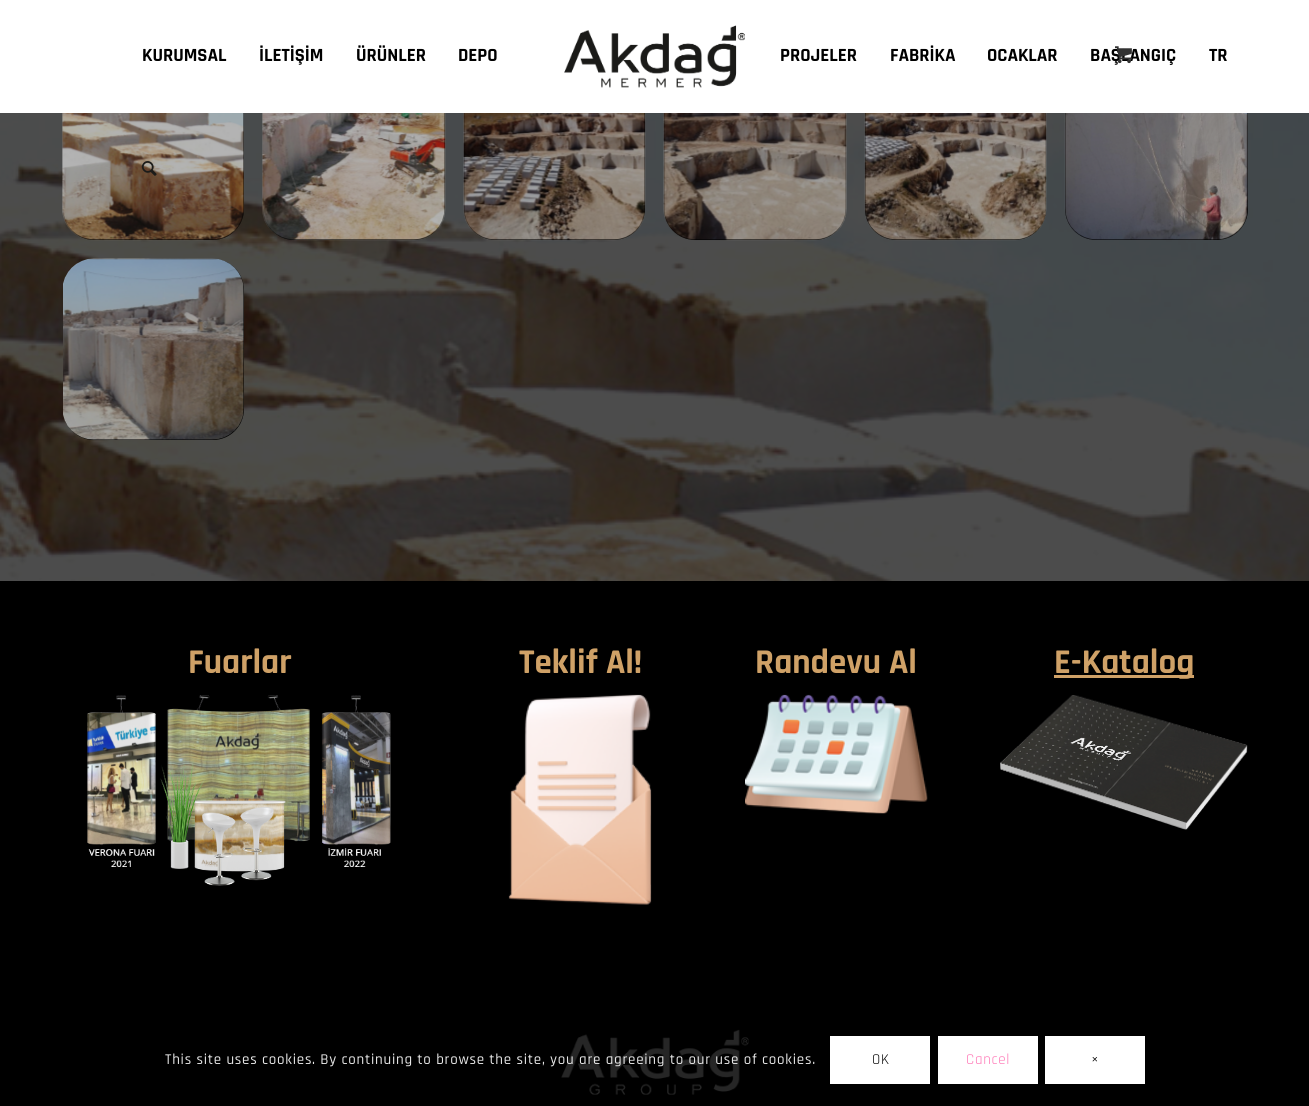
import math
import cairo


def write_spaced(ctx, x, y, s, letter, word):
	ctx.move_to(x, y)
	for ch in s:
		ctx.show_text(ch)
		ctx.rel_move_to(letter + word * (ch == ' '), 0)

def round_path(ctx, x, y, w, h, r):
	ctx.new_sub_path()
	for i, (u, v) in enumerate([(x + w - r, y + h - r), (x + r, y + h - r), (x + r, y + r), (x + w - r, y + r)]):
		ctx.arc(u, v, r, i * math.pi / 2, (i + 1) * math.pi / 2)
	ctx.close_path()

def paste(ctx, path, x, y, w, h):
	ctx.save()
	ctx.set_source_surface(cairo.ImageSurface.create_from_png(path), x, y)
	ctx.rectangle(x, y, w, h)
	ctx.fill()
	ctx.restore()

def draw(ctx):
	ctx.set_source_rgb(0, 0, 0)
	ctx.paint()
	paste(ctx, 'media/4.png', 0, 113, 1309, 468)
	ctx.set_source_rgb(0, 0, 0)
	round_path(ctx, 63, 58, 181, 182, 31)
	ctx.fill()
	round_path(ctx, 263, 58, 182, 182, 31)
	ctx.fill()
	round_path(ctx, 464, 58, 181, 182, 31)
	ctx.fill()
	round_path(ctx, 664, 58, 182, 182, 31)
	ctx.fill()
	round_path(ctx, 865, 58, 181, 182, 31)
	ctx.fill()
	round_path(ctx, 1065, 58, 183, 182, 31)
	ctx.fill()
	ctx.set_source_rgb(1, 1, 1)
	ctx.rectangle(0, 0, 1309, 113)
	ctx.fill()
	paste(ctx, 'media/1.png', 564, 25, 181, 63)
	ctx.select_font_face('Rajdhani', cairo.FONT_SLANT_NORMAL, cairo.FONT_WEIGHT_BOLD)
	ctx.set_font_size(18.75)
	ctx.set_source_rgb(0, 0, 0)
	for x, y, s in [
		(142, 61, 'KURUMSAL'),
		(259, 61, 'İLETİŞİM'),
		(356, 61, 'ÜRÜNLER'),
		(458, 61, 'DEPO'),
		(780, 61, 'PROJELER'),
		(890, 61, 'FABRİKA'),
		(987, 61, 'OCAKLAR'),
		(1090, 61, 'BAŞLANGIÇ'),
		(1209, 61, 'TR'),
	]:
		ctx.move_to(x, y)
		ctx.show_text(s)
	paste(ctx, 'media/5.png', 62, 113, 182, 128)
	paste(ctx, 'media/2.png', 141, 161, 16, 15)
	paste(ctx, 'media/3.png', 1115, 46, 17, 18)
	paste(ctx, 'media/6.png', 262, 113, 184, 128)
	paste(ctx, 'media/7.png', 463, 113, 183, 128)
	paste(ctx, 'media/8.png', 663, 113, 184, 128)
	paste(ctx, 'media/9.png', 864, 113, 183, 128)
	paste(ctx, 'media/10.png', 1064, 113, 184, 127)
	round_path(ctx, 63, 259, 181, 181, 31)
	ctx.fill()
	paste(ctx, 'media/11.png', 63, 258, 181, 182)
	ctx.set_font_size(35)
	ctx.set_source_rgb(0.812, 0.631, 0.404)
	ctx.move_to(188, 673)
	ctx.show_text('Fuarlar')
	paste(ctx, 'media/12.png', 87, 695, 304, 191)
	ctx.move_to(519, 673)
	ctx.show_text('Teklif Al!')
	paste(ctx, 'media/13.png', 508, 694, 144, 211)
	ctx.move_to(755, 673)
	ctx.show_text('Randevu Al')
	paste(ctx, 'media/14.png', 745, 694, 183, 120)
	ctx.rectangle(1054, 675, 140, 3)
	ctx.fill()
	ctx.move_to(1054, 673)
	ctx.show_text('E-Katalog')
	paste(ctx, 'media/15.png', 1000, 695, 248, 135)
	paste(ctx, 'media/16.png', 561, 1029, 188, 66)
	ctx.select_font_face('Rajdhani Medium')
	ctx.set_font_size(15)
	ctx.set_source_rgb(0.902, 0.902, 0.902)
	write_spaced(ctx, 165, 1064, 'This site uses cookies. By continuing to browse the site, you are agreeing to our use of cookies.', 0.75, 0)
	ctx.set_source_rgb(1, 1, 1)
	ctx.rectangle(830, 1036, 100, 48)
	ctx.fill()
	ctx.select_font_face('Rajdhani')
	ctx.set_source_rgb(0, 0, 0)
	write_spaced(ctx, 872, 1064, 'OK', 0.75, 0)
	ctx.set_source_rgb(1, 1, 1)
	ctx.rectangle(938, 1036, 100, 48)
	ctx.fill()
	ctx.set_source_rgb(1, 0.459, 0.71)
	write_spaced(ctx, 966, 1064, 'Cancel', 0.75, 0)
	ctx.set_source_rgb(1, 1, 1)
	ctx.rectangle(1045, 1036, 100, 48)
	ctx.fill()
	ctx.set_source_rgb(0, 0, 0)
	write_spaced(ctx, 1091, 1064, '×', 0.75, 0)


surface = cairo.ImageSurface(cairo.FORMAT_RGB24, 1309, 1106)
ctx = cairo.Context(surface)
options = cairo.FontOptions()
options.set_hint_metrics(cairo.HINT_METRICS_OFF)
options.set_hint_style(cairo.HINT_STYLE_NONE)
ctx.set_font_options(options)
ctx.set_miter_limit(4)
draw(ctx)
surface.write_to_png('image.png')
